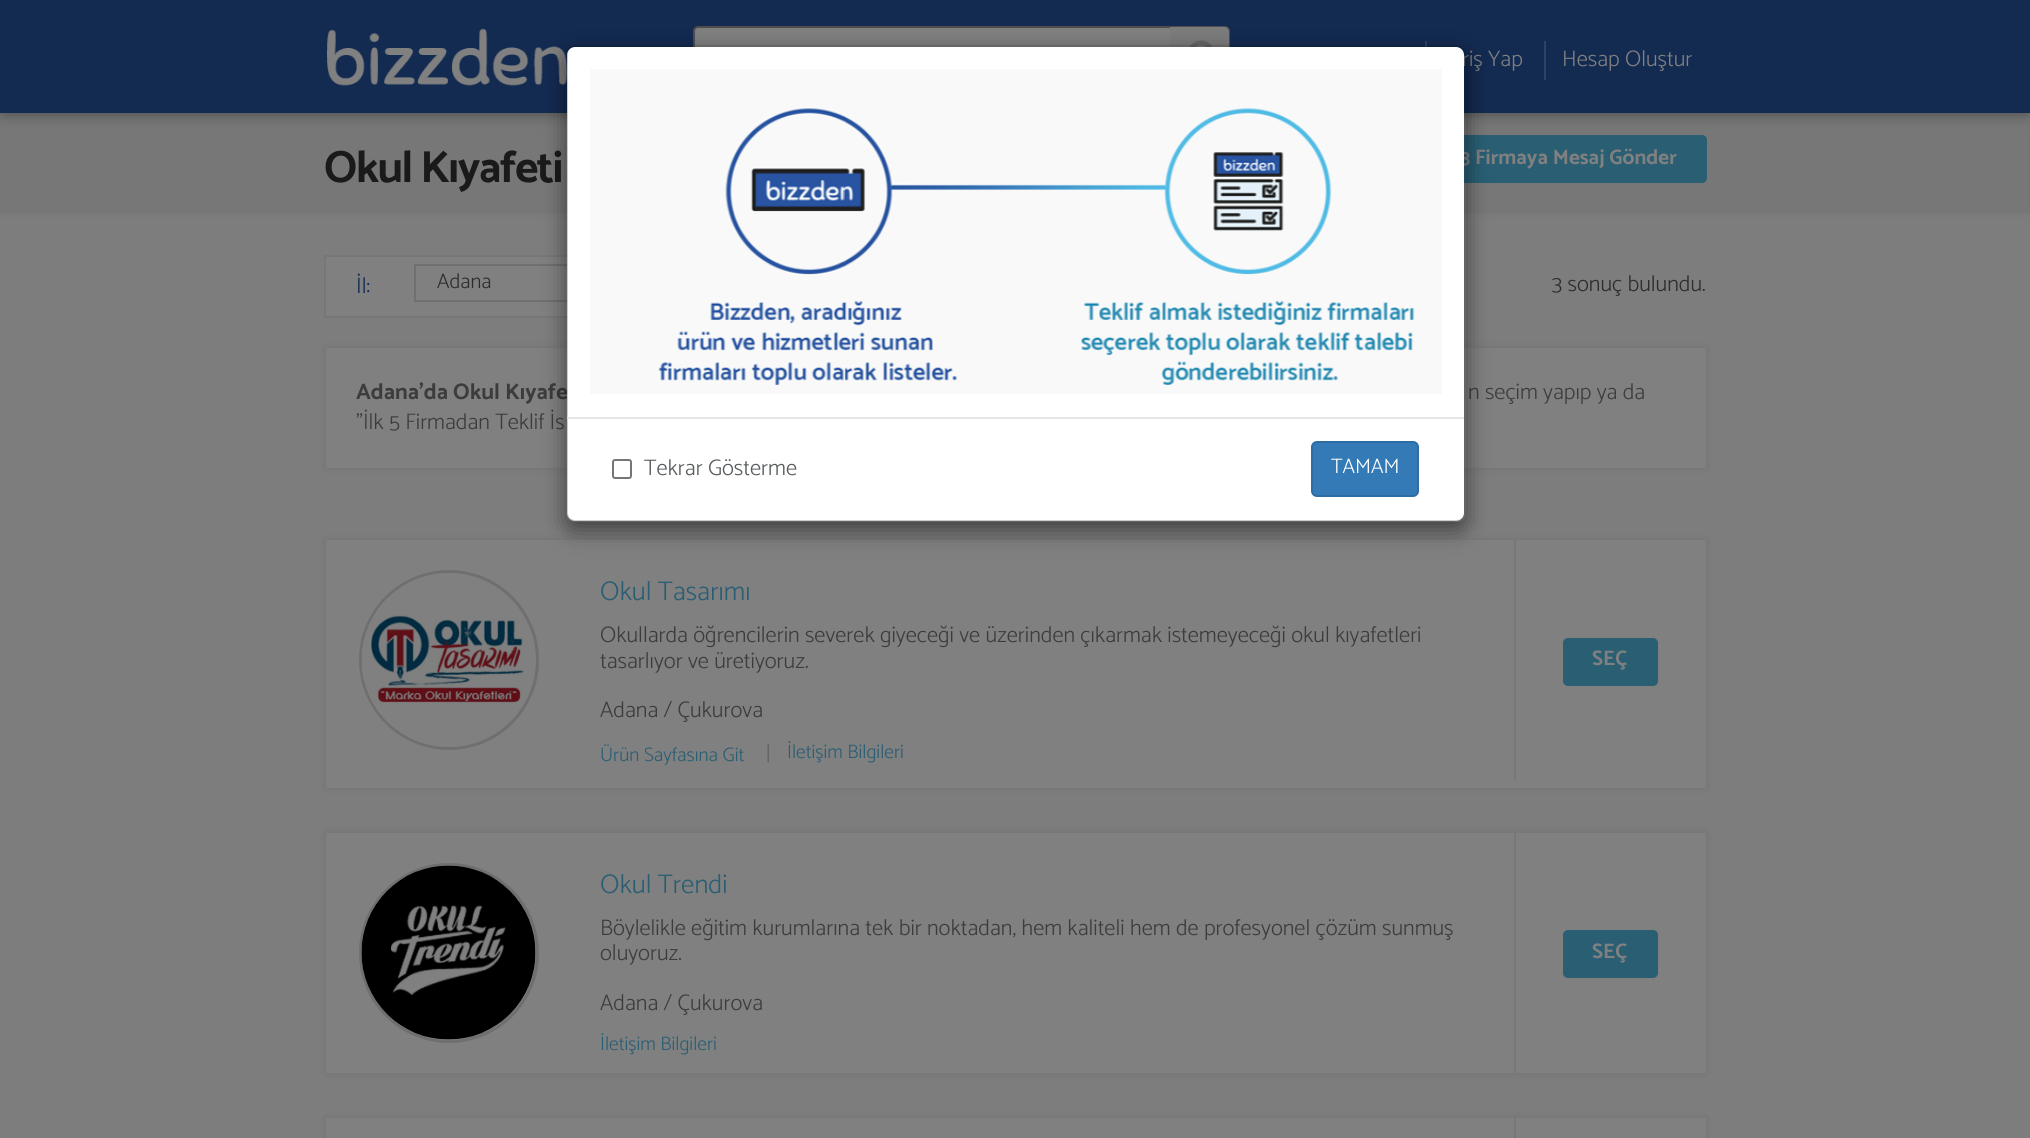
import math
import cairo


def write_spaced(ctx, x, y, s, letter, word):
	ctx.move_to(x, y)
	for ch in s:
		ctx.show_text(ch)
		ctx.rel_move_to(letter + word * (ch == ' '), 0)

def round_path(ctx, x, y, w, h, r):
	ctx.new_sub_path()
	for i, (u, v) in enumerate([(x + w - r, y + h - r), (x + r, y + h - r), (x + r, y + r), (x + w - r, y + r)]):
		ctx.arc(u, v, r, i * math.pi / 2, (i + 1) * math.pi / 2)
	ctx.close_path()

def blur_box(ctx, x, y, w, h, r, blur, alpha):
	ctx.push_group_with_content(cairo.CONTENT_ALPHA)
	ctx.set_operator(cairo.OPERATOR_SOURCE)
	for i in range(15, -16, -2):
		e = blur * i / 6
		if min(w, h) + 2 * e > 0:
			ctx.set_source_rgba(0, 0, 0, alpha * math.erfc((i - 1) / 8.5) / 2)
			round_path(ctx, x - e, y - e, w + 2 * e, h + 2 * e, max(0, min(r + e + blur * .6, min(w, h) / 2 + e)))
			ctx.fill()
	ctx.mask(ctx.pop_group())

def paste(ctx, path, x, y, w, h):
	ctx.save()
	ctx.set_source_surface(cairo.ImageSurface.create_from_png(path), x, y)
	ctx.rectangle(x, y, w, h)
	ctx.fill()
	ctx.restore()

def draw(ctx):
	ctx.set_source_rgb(0.49, 0.49, 0.49)
	ctx.paint()
	ctx.set_source_rgb(0, 0, 0)
	blur_box(ctx, 0, 90, 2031, 122, 0, 4, 0.1)
	ctx.set_source_rgb(0.467, 0.467, 0.467)
	ctx.rectangle(2, 113, 2027, 97)
	ctx.fill()
	ctx.set_source_rgb(0.161, 0.369, 0.451)
	round_path(ctx, 1403, 135, 304, 48, 5)
	ctx.fill()
	ctx.set_source_rgb(0, 0, 0)
	blur_box(ctx, 3, 6, 2025, 107, 0, 7.5, 0.41)
	ctx.set_source_rgb(0.078, 0.165, 0.318)
	ctx.rectangle(0, 0, 2030, 113)
	ctx.fill()
	paste(ctx, 'media/1.png', 327, 28, 240, 58)
	ctx.set_source_rgb(0.502, 0.502, 0.502)
	round_path(ctx, 694, 27, 535, 59, 4)
	ctx.fill_preserve()
	ctx.set_source_rgb(0.302, 0.302, 0.302)
	ctx.stroke()
	ctx.set_source_rgb(0.486, 0.486, 0.486)
	ctx.new_path()
	ctx.move_to(1170, 27)
	ctx.line_to(1224, 27)
	ctx.curve_to(1227, 27, 1229, 29, 1229, 32)
	ctx.line_to(1229, 81)
	ctx.curve_to(1229, 84, 1227, 86, 1224, 86)
	ctx.line_to(1170, 86)
	ctx.close_path()
	ctx.fill()
	paste(ctx, 'media/2.png', 1189, 40, 24, 7)
	ctx.set_source_rgb(0.173, 0.259, 0.412)
	ctx.rectangle(1425, 41, 2, 6)
	ctx.fill()
	ctx.select_font_face('Catamaran Light')
	ctx.set_font_size(22.5)
	ctx.set_source_rgb(0.502, 0.502, 0.502)
	ctx.move_to(1462, 66)
	ctx.show_text('riş Yap')
	ctx.set_source_rgb(0.173, 0.259, 0.412)
	ctx.rectangle(1544, 41, 2, 39)
	ctx.fill()
	ctx.set_source_rgb(0.502, 0.502, 0.502)
	ctx.move_to(1562, 66)
	ctx.show_text('Hesap Oluştur')
	ctx.select_font_face('Catamaran', cairo.FONT_SLANT_NORMAL, cairo.FONT_WEIGHT_BOLD)
	ctx.set_font_size(45)
	ctx.set_source_rgb(0.102, 0.102, 0.102)
	write_spaced(ctx, 324, 182, 'Okul Kıyafeti', -1.5, 0)
	ctx.set_font_size(21)
	ctx.set_source_rgb(0.502, 0.502, 0.502)
	ctx.move_to(1460, 164)
	ctx.show_text('3 Firmaya Mesaj Gönder')
	ctx.rectangle(326, 257, 241, 59)
	ctx.fill()
	ctx.rectangle(325, 256, 712, 61)
	ctx.set_source_rgb(0.467, 0.467, 0.467)
	ctx.stroke()
	ctx.select_font_face('Catamaran Light')
	ctx.set_font_size(22.5)
	ctx.set_source_rgb(0.078, 0.165, 0.318)
	ctx.move_to(356, 293)
	ctx.show_text('İl:')
	ctx.rectangle(415, 265, 243, 36)
	ctx.set_source_rgb(0.435, 0.435, 0.435)
	ctx.stroke()
	ctx.set_font_size(21)
	ctx.set_source_rgb(0.169, 0.176, 0.18)
	ctx.move_to(437, 288)
	ctx.show_text('Adana')
	ctx.set_font_size(22.5)
	ctx.move_to(1552, 291)
	ctx.show_text('3 sonuç bulundu.')
	ctx.set_source_rgb(0, 0, 0)
	blur_box(ctx, 326, 348, 1380, 120, 0, 4, 0.1)
	ctx.set_source_rgb(0.502, 0.502, 0.502)
	ctx.rectangle(326, 348, 1380, 120)
	ctx.fill()
	ctx.select_font_face('Catamaran', cairo.FONT_SLANT_NORMAL, cairo.FONT_WEIGHT_BOLD)
	ctx.set_source_rgb(0.235, 0.235, 0.235)
	ctx.move_to(356, 399)
	ctx.show_text('Adana\'da Okul Kıyafe')
	ctx.select_font_face('Catamaran Light')
	ctx.move_to(1468, 399)
	ctx.show_text('n seçim yapıp ya da')
	ctx.move_to(356, 429)
	ctx.show_text('"İlk 5 Firmadan Teklif İs')
	ctx.set_source_rgb(0, 0, 0)
	blur_box(ctx, 326, 540, 1380, 248, 0, 4, 0.1)
	ctx.set_source_rgb(0.502, 0.502, 0.502)
	ctx.rectangle(326, 540, 1380, 248)
	ctx.fill()
	ctx.arc(449, 660, 88.5, 0, 2 * math.pi)
	ctx.set_source_rgb(0.435, 0.435, 0.435)
	ctx.set_line_width(3)
	ctx.stroke()
	paste(ctx, 'media/3.png', 361, 573, 163, 174)
	ctx.set_font_size(27)
	ctx.set_source_rgb(0.161, 0.369, 0.451)
	ctx.move_to(600, 600)
	ctx.show_text('Okul Tasarımı')
	ctx.set_font_size(22.5)
	ctx.set_source_rgb(0.235, 0.235, 0.235)
	for x, y, s in [
		(600, 642, 'Okullarda öğrencilerin severek giyeceği ve üzerinden çıkarmak istemeyeceği okul kıyafetleri'),
		(600, 668, 'tasarlıyor ve üretiyoruz.'),
		(600, 717, 'Adana / Çukurova'),
	]:
		ctx.move_to(x, y)
		ctx.show_text(s)
	ctx.set_font_size(19.5)
	ctx.set_source_rgb(0.161, 0.369, 0.451)
	ctx.move_to(600, 761)
	ctx.show_text('Ürün Sayfasına Git')
	ctx.set_font_size(26)
	ctx.set_source_rgb(0.4, 0.4, 0.4)
	ctx.move_to(765, 762)
	ctx.show_text('|')
	ctx.set_font_size(19.5)
	ctx.set_source_rgb(0.161, 0.369, 0.451)
	ctx.move_to(787, 758)
	ctx.show_text('İletişim Bilgileri')
	ctx.set_source_rgb(0.467, 0.467, 0.467)
	ctx.rectangle(1514, 540, 2, 240)
	ctx.fill()
	ctx.set_source_rgb(0.161, 0.369, 0.451)
	round_path(ctx, 1563, 638, 95, 48, 5)
	ctx.fill()
	ctx.select_font_face('Catamaran', cairo.FONT_SLANT_NORMAL, cairo.FONT_WEIGHT_BOLD)
	ctx.set_font_size(21)
	ctx.set_source_rgb(0.502, 0.502, 0.502)
	ctx.move_to(1592, 665)
	ctx.show_text('SEÇ')
	ctx.set_source_rgb(0, 0, 0)
	blur_box(ctx, 326, 833, 1380, 240, 0, 4, 0.1)
	ctx.set_source_rgb(0.502, 0.502, 0.502)
	ctx.rectangle(326, 833, 1380, 240)
	ctx.fill()
	ctx.arc(449, 953, 88.5, 0, 2 * math.pi)
	ctx.set_source_rgb(0.435, 0.435, 0.435)
	ctx.stroke()
	paste(ctx, 'media/4.png', 361, 865, 175, 175)
	ctx.select_font_face('Catamaran Light')
	ctx.set_font_size(27)
	ctx.set_source_rgb(0.161, 0.369, 0.451)
	ctx.move_to(600, 893)
	ctx.show_text('Okul Trendi')
	ctx.set_font_size(22.5)
	ctx.set_source_rgb(0.235, 0.235, 0.235)
	for x, y, s in [
		(600, 935, 'Böylelikle eğitim kurumlarına tek bir noktadan, hem kaliteli hem de profesyonel çözüm sunmuş'),
		(600, 960, 'oluyoruz.'),
		(600, 1010, 'Adana / Çukurova'),
	]:
		ctx.move_to(x, y)
		ctx.show_text(s)
	ctx.set_font_size(19.5)
	ctx.set_source_rgb(0.161, 0.369, 0.451)
	ctx.move_to(600, 1050)
	ctx.show_text('İletişim Bilgileri')
	ctx.set_source_rgb(0.467, 0.467, 0.467)
	ctx.rectangle(1514, 833, 2, 240)
	ctx.fill()
	ctx.set_source_rgb(0.161, 0.369, 0.451)
	round_path(ctx, 1563, 930, 95, 48, 5)
	ctx.fill()
	ctx.select_font_face('Catamaran', cairo.FONT_SLANT_NORMAL, cairo.FONT_WEIGHT_BOLD)
	ctx.set_font_size(21)
	ctx.set_source_rgb(0.502, 0.502, 0.502)
	ctx.move_to(1592, 958)
	ctx.show_text('SEÇ')
	ctx.set_source_rgb(0, 0, 0)
	blur_box(ctx, 326, 1118, 1380, 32, 0, 4, 0.1)
	ctx.set_source_rgb(0.502, 0.502, 0.502)
	ctx.rectangle(326, 1118, 1380, 20)
	ctx.fill()
	ctx.set_source_rgb(0.467, 0.467, 0.467)
	ctx.rectangle(1514, 1118, 2, 20)
	ctx.fill()
	ctx.save()
	ctx.set_fill_rule(cairo.FILL_RULE_EVEN_ODD)
	ctx.new_path()
	ctx.move_to(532, 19)
	ctx.line_to(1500, 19)
	ctx.line_to(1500, 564)
	ctx.line_to(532, 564)
	ctx.close_path()
	ctx.move_to(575, 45)
	ctx.line_to(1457, 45)
	ctx.curve_to(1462, 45, 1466, 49, 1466, 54)
	ctx.line_to(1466, 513)
	ctx.curve_to(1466, 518, 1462, 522, 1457, 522)
	ctx.line_to(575, 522)
	ctx.curve_to(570, 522, 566, 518, 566, 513)
	ctx.line_to(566, 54)
	ctx.curve_to(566, 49, 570, 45, 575, 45)
	ctx.close_path()
	ctx.clip()
	ctx.set_source_rgb(0, 0, 0)
	blur_box(ctx, 566, 53, 900, 477, 9, 11, 0.5)
	ctx.restore()
	ctx.set_source_rgb(1, 1, 1)
	round_path(ctx, 567, 47, 897, 474, 8)
	ctx.fill()
	round_path(ctx, 567, 46, 898, 475, 8)
	ctx.set_source_rgba(0, 0, 0, 0.2)
	ctx.set_line_width(2)
	ctx.stroke()
	paste(ctx, 'media/5.png', 590, 69, 852, 325)
	ctx.set_source_rgb(0.898, 0.898, 0.898)
	ctx.rectangle(567, 417, 897, 2)
	ctx.fill()
	round_path(ctx, 613, 460, 18, 18, 2)
	ctx.set_source_rgb(0.463, 0.463, 0.463)
	ctx.stroke()
	ctx.select_font_face('Catamaran Light')
	ctx.set_font_size(22.5)
	ctx.set_source_rgb(0.337, 0.353, 0.361)
	ctx.move_to(644, 475)
	ctx.show_text('Tekrar Gösterme')
	ctx.set_source_rgb(0.2, 0.478, 0.718)
	round_path(ctx, 1312, 442, 106, 54, 5)
	ctx.fill_preserve()
	ctx.set_source_rgb(0.18, 0.427, 0.643)
	ctx.stroke()
	ctx.set_font_size(21)
	ctx.set_source_rgb(1, 1, 1)
	ctx.move_to(1331, 473)
	ctx.show_text('TAMAM')


surface = cairo.ImageSurface(cairo.FORMAT_RGB24, 2030, 1138)
ctx = cairo.Context(surface)
options = cairo.FontOptions()
options.set_hint_metrics(cairo.HINT_METRICS_OFF)
options.set_hint_style(cairo.HINT_STYLE_NONE)
ctx.set_font_options(options)
ctx.set_miter_limit(4)
draw(ctx)
surface.write_to_png('image.png')
